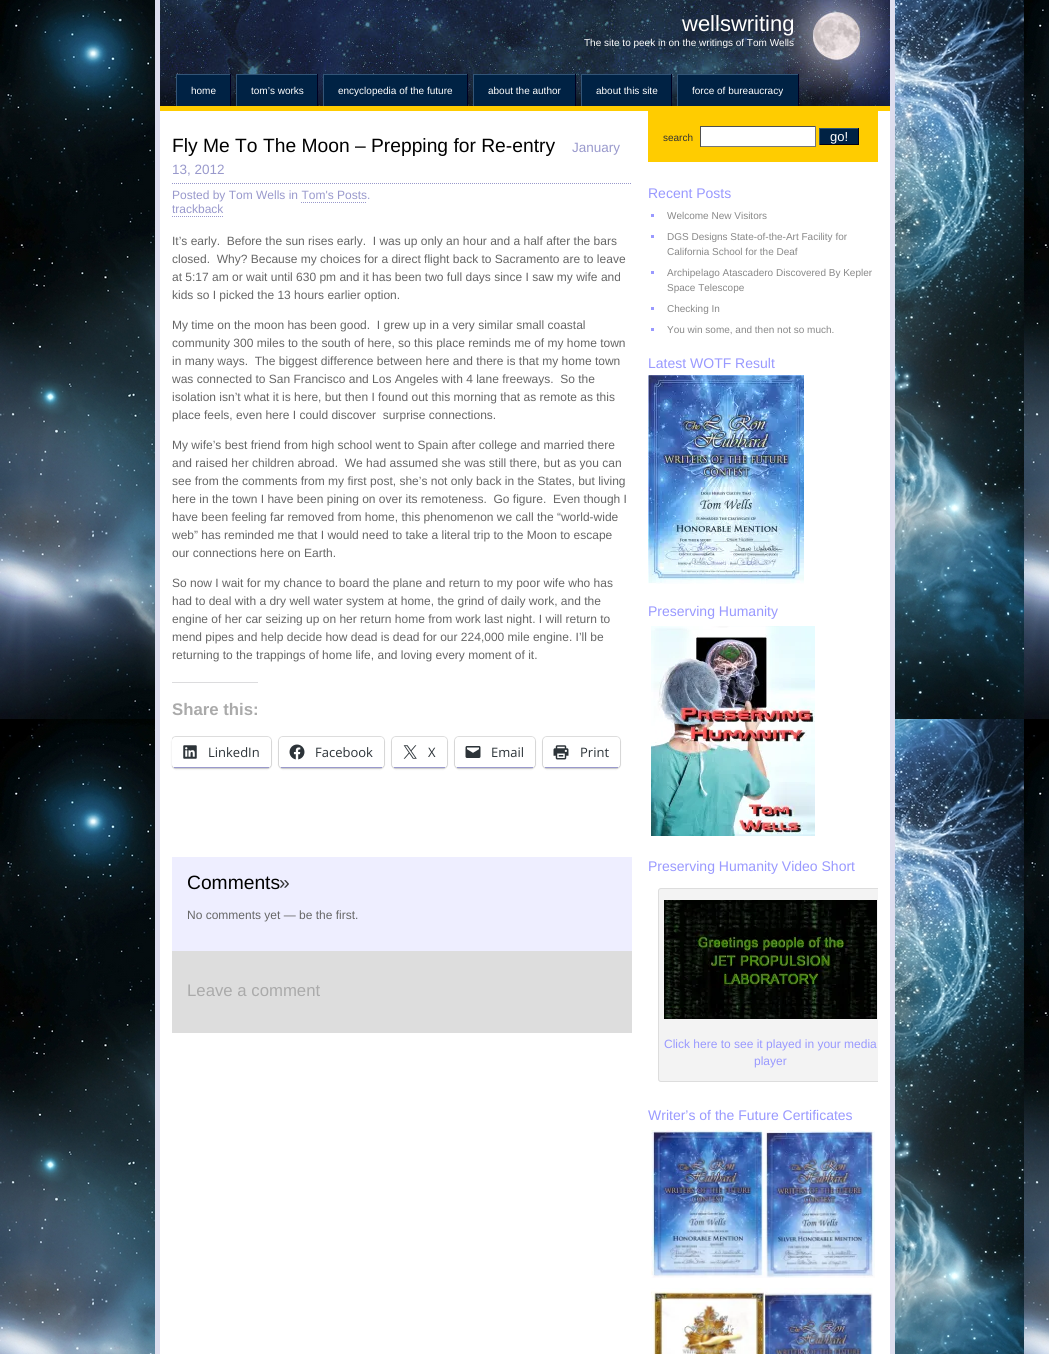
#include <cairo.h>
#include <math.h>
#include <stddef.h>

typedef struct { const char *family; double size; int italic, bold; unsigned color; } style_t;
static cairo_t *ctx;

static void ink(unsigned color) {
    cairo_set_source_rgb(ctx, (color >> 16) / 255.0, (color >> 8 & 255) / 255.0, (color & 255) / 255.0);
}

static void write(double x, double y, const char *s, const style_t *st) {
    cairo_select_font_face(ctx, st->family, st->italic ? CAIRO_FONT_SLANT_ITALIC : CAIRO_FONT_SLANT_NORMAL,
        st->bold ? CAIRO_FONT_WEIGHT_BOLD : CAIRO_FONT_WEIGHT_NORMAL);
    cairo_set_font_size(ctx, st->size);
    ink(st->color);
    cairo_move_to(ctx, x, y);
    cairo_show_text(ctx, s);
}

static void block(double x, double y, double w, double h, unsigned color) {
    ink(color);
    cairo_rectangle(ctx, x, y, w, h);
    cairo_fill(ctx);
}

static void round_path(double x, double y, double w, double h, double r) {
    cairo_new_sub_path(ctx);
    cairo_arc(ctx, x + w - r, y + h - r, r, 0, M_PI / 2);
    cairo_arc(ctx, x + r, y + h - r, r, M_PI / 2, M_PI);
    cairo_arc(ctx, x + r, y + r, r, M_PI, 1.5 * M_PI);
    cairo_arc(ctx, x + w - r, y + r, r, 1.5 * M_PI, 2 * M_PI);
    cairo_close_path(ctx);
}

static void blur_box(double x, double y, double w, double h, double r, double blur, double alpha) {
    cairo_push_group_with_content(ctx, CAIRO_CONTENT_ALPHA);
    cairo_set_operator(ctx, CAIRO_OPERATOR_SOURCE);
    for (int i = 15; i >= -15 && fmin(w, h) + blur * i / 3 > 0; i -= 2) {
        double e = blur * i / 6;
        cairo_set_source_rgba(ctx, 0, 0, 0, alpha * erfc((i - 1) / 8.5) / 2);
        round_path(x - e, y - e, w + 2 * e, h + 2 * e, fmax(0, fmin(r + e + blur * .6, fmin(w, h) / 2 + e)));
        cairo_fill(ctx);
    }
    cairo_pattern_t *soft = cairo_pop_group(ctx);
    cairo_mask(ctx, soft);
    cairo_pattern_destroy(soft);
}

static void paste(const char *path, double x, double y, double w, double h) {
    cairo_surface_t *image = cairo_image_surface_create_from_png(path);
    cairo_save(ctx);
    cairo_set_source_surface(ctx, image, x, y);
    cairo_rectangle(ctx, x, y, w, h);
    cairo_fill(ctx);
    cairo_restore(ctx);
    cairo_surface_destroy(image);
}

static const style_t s1 = {"Liberation Sans", 22, 0, 0, 0xffffff};
static const style_t s2 = {"Liberation Sans", 10, 0, 0, 0xffffff};
static const style_t s3 = {"Liberation Sans", 19.25, 0, 0, 0x000000};
static const style_t s4 = {"Liberation Sans", 13.5, 0, 0, 0x9999cc};
static const style_t s5 = {"Liberation Sans", 12, 0, 0, 0x9999cc};
static const style_t s6 = {"Liberation Sans", 12, 0, 0, 0x666666};
static const style_t s7 = {"Liberation Sans", 16.75, 0, 1, 0xaaaaaa};
static const style_t s8 = {"Open Sans", 13, 0, 0, 0x2c3338};
static const style_t s9 = {"Liberation Sans", 19.25, 0, 0, 0x333333};
static const style_t s10 = {"Liberation Sans", 16.75, 0, 0, 0xaaaaaa};
static const style_t s11 = {"Liberation Sans", 10, 0, 0, 0x333333};
static const style_t s12 = {"Liberation Sans", 13, 0, 0, 0xffffff};
static const style_t s13 = {"Liberation Sans", 14, 0, 0, 0x9999ff};
static const style_t s14 = {"Liberation Sans", 10, 0, 0, 0x888888};
static const style_t s15 = {"Liberation Sans", 12, 0, 0, 0x9999ff};

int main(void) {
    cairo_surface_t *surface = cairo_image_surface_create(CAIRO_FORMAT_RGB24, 1049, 1354);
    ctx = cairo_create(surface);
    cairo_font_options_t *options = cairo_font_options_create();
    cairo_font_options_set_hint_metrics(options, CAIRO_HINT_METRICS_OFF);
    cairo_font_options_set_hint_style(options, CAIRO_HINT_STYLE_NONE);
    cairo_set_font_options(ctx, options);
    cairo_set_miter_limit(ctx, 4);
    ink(0xffffff);
    cairo_paint(ctx);
    paste("pic1.png", 0, 0, 1049, 1354);
    block(160, 111, 730, 1243, 0xffffff);
    cairo_rectangle(ctx, 157.5, -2.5, 735, 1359);
    ink(0xddddee);
    cairo_set_line_width(ctx, 5);
    cairo_stroke(ctx);
    paste("pic2.png", 160, 0, 730, 106);
    block(160, 106, 730, 5, 0xffcc00);
    write(682, 31, "wellswriting", &s1);
    write(584, 46, "The site to peek in on the writings of Tom Wells", &s2);
    block(177, 75, 53, 31, 0x002244);
    block(176, 74, 55, 1, 0x335577);
    block(230, 74, 1, 32, 0x000022);
    block(176, 74, 1, 32, 0x335577);
    write(191, 94, "home", &s2);
    block(237, 75, 80, 31, 0x002244);
    block(236, 74, 82, 1, 0x335577);
    block(317, 74, 1, 32, 0x000022);
    block(236, 74, 1, 32, 0x335577);
    write(251, 94, "tom’s works", &s2);
    block(324, 75, 143, 31, 0x002244);
    block(323, 74, 145, 1, 0x335577);
    block(467, 74, 1, 32, 0x000022);
    block(323, 74, 1, 32, 0x335577);
    write(338, 94, "encyclopedia of the future", &s2);
    block(474, 75, 101, 31, 0x002244);
    block(473, 74, 103, 1, 0x335577);
    block(575, 74, 1, 32, 0x000022);
    block(473, 74, 1, 32, 0x335577);
    write(488, 94, "about the author", &s2);
    block(582, 75, 89, 31, 0x002244);
    block(581, 74, 91, 1, 0x335577);
    block(671, 74, 1, 32, 0x000022);
    block(581, 74, 1, 32, 0x335577);
    write(596, 94, "about this site", &s2);
    block(678, 75, 120, 31, 0x002244);
    block(677, 74, 122, 1, 0x335577);
    block(798, 74, 1, 32, 0x000022);
    block(677, 74, 1, 32, 0x335577);
    write(692, 94, "force of bureaucracy", &s2);
    write(172, 152, "Fly Me To The Moon – Prepping for Re-entry", &s3);
    write(572, 152, "January", &s4);
    write(172, 174, "13, 2012", &s4);
    cairo_new_path(ctx);
    cairo_move_to(ctx, 172, 183.5);
    cairo_line_to(ctx, 632, 183.5);
    cairo_set_line_width(ctx, 1);
    cairo_set_dash(ctx, (double[]){1, 1}, 2, 0);
    cairo_stroke(ctx);
    write(172, 199, "Posted by Tom Wells in Tom's Posts.", &s5);
    cairo_new_path(ctx);
    cairo_move_to(ctx, 301, 202.5);
    cairo_line_to(ctx, 367, 202.5);
    cairo_stroke(ctx);
    write(172, 213, "trackback", &s5);
    cairo_new_path(ctx);
    cairo_move_to(ctx, 172, 216.5);
    cairo_line_to(ctx, 223, 216.5);
    cairo_stroke(ctx);
    write(172, 245, "It’s early.  Before the sun rises early.  I was up only an hour and a half after the bars", &s6);
    write(172, 263, "closed.  Why? Because my choices for a direct flight back to Sacramento are to leave", &s6);
    write(172, 281, "at 5:17 am or wait until 630 pm and it has been two full days since I saw my wife and", &s6);
    write(172, 299, "kids so I picked the 13 hours earlier option.", &s6);
    write(172, 329, "My time on the moon has been good.  I grew up in a very similar small coastal", &s6);
    write(172, 347, "community 300 miles to the south of here, so this place reminds me of my home town", &s6);
    write(172, 365, "in many ways.  The biggest difference between here and there is that my home town", &s6);
    write(172, 383, "was connected to San Francisco and Los Angeles with 4 lane freeways.  So the", &s6);
    write(172, 401, "isolation isn’t what it is here, but then I found out this morning that as remote as this", &s6);
    write(172, 419, "place feels, even here I could discover  surprise connections.", &s6);
    write(172, 449, "My wife’s best friend from high school went to Spain after college and married there", &s6);
    write(172, 467, "and raised her children abroad.  We had assumed she was still there, but as you can", &s6);
    write(172, 485, "see from the comments from my first post, she’s not only back in the States, but living", &s6);
    write(172, 503, "here in the town I have been pining on over its remoteness.  Go figure.  Even though I", &s6);
    write(172, 521, "have been feeling far removed from home, this phenomenon we call the “world-wide", &s6);
    write(172, 539, "web” has reminded me that I would need to take a literal trip to the Moon to escape", &s6);
    write(172, 557, "our connections here on Earth.", &s6);
    write(172, 587, "So now I wait for my chance to board the plane and return to my poor wife who has", &s6);
    write(172, 605, "had to deal with a dry well water system at home, the grind of daily work, and the", &s6);
    write(172, 623, "engine of her car seizing up on her return home from work last night. I will return to", &s6);
    write(172, 641, "mend pipes and help decide how dead is dead for our 224,000 mile engine. I’ll be", &s6);
    write(172, 659, "returning to the trappings of home life, and loving every moment of it.", &s6);
    block(172, 682, 86, 1, 0xdcdcde);
    write(172, 715, "Share this:", &s7);
    cairo_save(ctx);
    cairo_rectangle(ctx, 172, 111, 460, 922);
    cairo_clip(ctx);
    round_path(171.5, 736.5, 100, 32, 4.5);
    ink(0xe0e0e0);
    cairo_set_dash(ctx, NULL, 0, 0);
    cairo_stroke(ctx);
    cairo_restore(ctx);
    ink(0x000000);
    blur_box(172, 738, 99, 31, 4, 1, 0.12);
    ink(0xffffff);
    round_path(172, 737, 99, 31, 4);
    cairo_fill(ctx);
    block(174, 767, 95, 1, 0x9999cc);
    paste("pic3.png", 183, 745, 14, 14);
    write(208, 757, "LinkedIn", &s8);
    round_path(278.5, 736.5, 106, 32, 4.5);
    ink(0xe0e0e0);
    cairo_set_dash(ctx, NULL, 0, 0);
    cairo_stroke(ctx);
    ink(0x000000);
    blur_box(279, 738, 105, 31, 4, 1, 0.12);
    ink(0xffffff);
    round_path(279, 737, 105, 31, 4);
    cairo_fill(ctx);
    block(281, 767, 101, 1, 0x9999cc);
    paste("pic4.png", 289, 744, 16, 16);
    write(315, 757, "Facebook", &s8);
    round_path(391.5, 736.5, 56, 32, 4.5);
    ink(0xe0e0e0);
    cairo_stroke(ctx);
    ink(0x000000);
    blur_box(392, 738, 55, 31, 4, 1, 0.12);
    ink(0xffffff);
    round_path(392, 737, 55, 31, 4);
    cairo_fill(ctx);
    block(394, 767, 51, 1, 0x9999cc);
    paste("pic5.png", 403, 745, 14, 14);
    write(428, 757, "X", &s8);
    round_path(454.5, 736.5, 81, 32, 4.5);
    ink(0xe0e0e0);
    cairo_stroke(ctx);
    ink(0x000000);
    blur_box(455, 738, 80, 31, 4, 1, 0.12);
    ink(0xffffff);
    round_path(455, 737, 80, 31, 4);
    cairo_fill(ctx);
    block(457, 767, 76, 1, 0x9999cc);
    paste("pic6.png", 465, 746, 16, 12);
    write(491, 757, "Email", &s8);
    round_path(542.5, 736.5, 78, 32, 4.5);
    ink(0xe0e0e0);
    cairo_stroke(ctx);
    ink(0x000000);
    blur_box(543, 738, 77, 31, 4, 1, 0.12);
    ink(0xffffff);
    round_path(543, 737, 77, 31, 4);
    cairo_fill(ctx);
    block(545, 767, 73, 1, 0x9999cc);
    paste("pic7.png", 553, 745, 16, 15);
    write(580, 757, "Print", &s8);
    block(172, 857, 460, 94, 0xeeeeff);
    write(187, 889, "Comments", &s3);
    write(279, 889, "»", &s9);
    write(187, 919, "No comments yet — be the first.", &s6);
    block(172, 951, 460, 82, 0xdddddd);
    write(187, 996, "Leave a comment", &s10);
    block(648, 111, 230, 51, 0xffcc00);
    write(663, 141, "search", &s11);
    block(701, 127, 114, 19, 0xffffff);
    block(700, 126, 116, 1, 0x4f4f4f);
    block(815, 126, 1, 21, 0x767676);
    block(700, 146, 116, 1, 0x767676);
    block(700, 126, 1, 21, 0x4f4f4f);
    block(820, 129, 38, 15, 0x002244);
    block(819, 128, 40, 1, 0x335577);
    block(858, 128, 1, 17, 0x000017);
    block(819, 144, 40, 1, 0x000017);
    block(819, 128, 1, 17, 0x335577);
    write(830, 141, "go!", &s12);
    write(648, 198, "Recent Posts", &s13);
    block(651, 214, 3, 3, 0x9999ff);
    write(667, 219, "Welcome New Visitors", &s14);
    block(651, 235, 3, 3, 0x9999ff);
    write(667, 240, "DGS Designs State-of-the-Art Facility for", &s14);
    write(667, 255, "California School for the Deaf", &s14);
    block(651, 271, 3, 3, 0x9999ff);
    write(667, 276, "Archipelago Atascadero Discovered By Kepler", &s14);
    write(667, 291, "Space Telescope", &s14);
    block(651, 307, 3, 3, 0x9999ff);
    write(667, 312, "Checking In", &s14);
    block(651, 328, 3, 3, 0x9999ff);
    write(667, 333, "You win some, and then not so much.", &s14);
    write(648, 368, "Latest WOTF Result", &s13);
    paste("pic8.png", 648, 375, 156, 209);
    write(648, 616, "Preserving Humanity", &s13);
    paste("pic9.png", 651, 626, 164, 210);
    write(648, 871, "Preserving Humanity Video Short", &s13);
    ink(0xf3f3f3);
    cairo_new_path(ctx);
    cairo_move_to(ctx, 661, 888);
    cairo_line_to(ctx, 878, 888);
    cairo_line_to(ctx, 878, 1082);
    cairo_line_to(ctx, 661, 1082);
    cairo_curve_to(ctx, 659.5, 1082, 658, 1080.5, 658, 1079);
    cairo_line_to(ctx, 658, 891);
    cairo_curve_to(ctx, 658, 889.5, 659.5, 888, 661, 888);
    cairo_close_path(ctx);
    cairo_fill(ctx);
    cairo_save(ctx);
    cairo_rectangle(ctx, 648, 843, 230, 249);
    cairo_clip(ctx);
    round_path(658.5, 888.5, 224, 193, 2.5);
    ink(0xdddddd);
    cairo_stroke(ctx);
    cairo_restore(ctx);
    paste("pic10.png", 664, 900, 213, 119);
    write(664, 1048, "Click here to see it played in your media", &s15);
    write(754, 1065, "player", &s15);
    write(648, 1120, "Writer’s of the Future Certificates", &s13);
    paste("pic11.png", 651, 1130, 224, 148);
    paste("pic12.png", 651, 1288, 222, 66);
    cairo_surface_write_to_png(surface, "screenshot.png");
    cairo_font_options_destroy(options);
    cairo_destroy(ctx);
    cairo_surface_destroy(surface);
    return 0;
}
